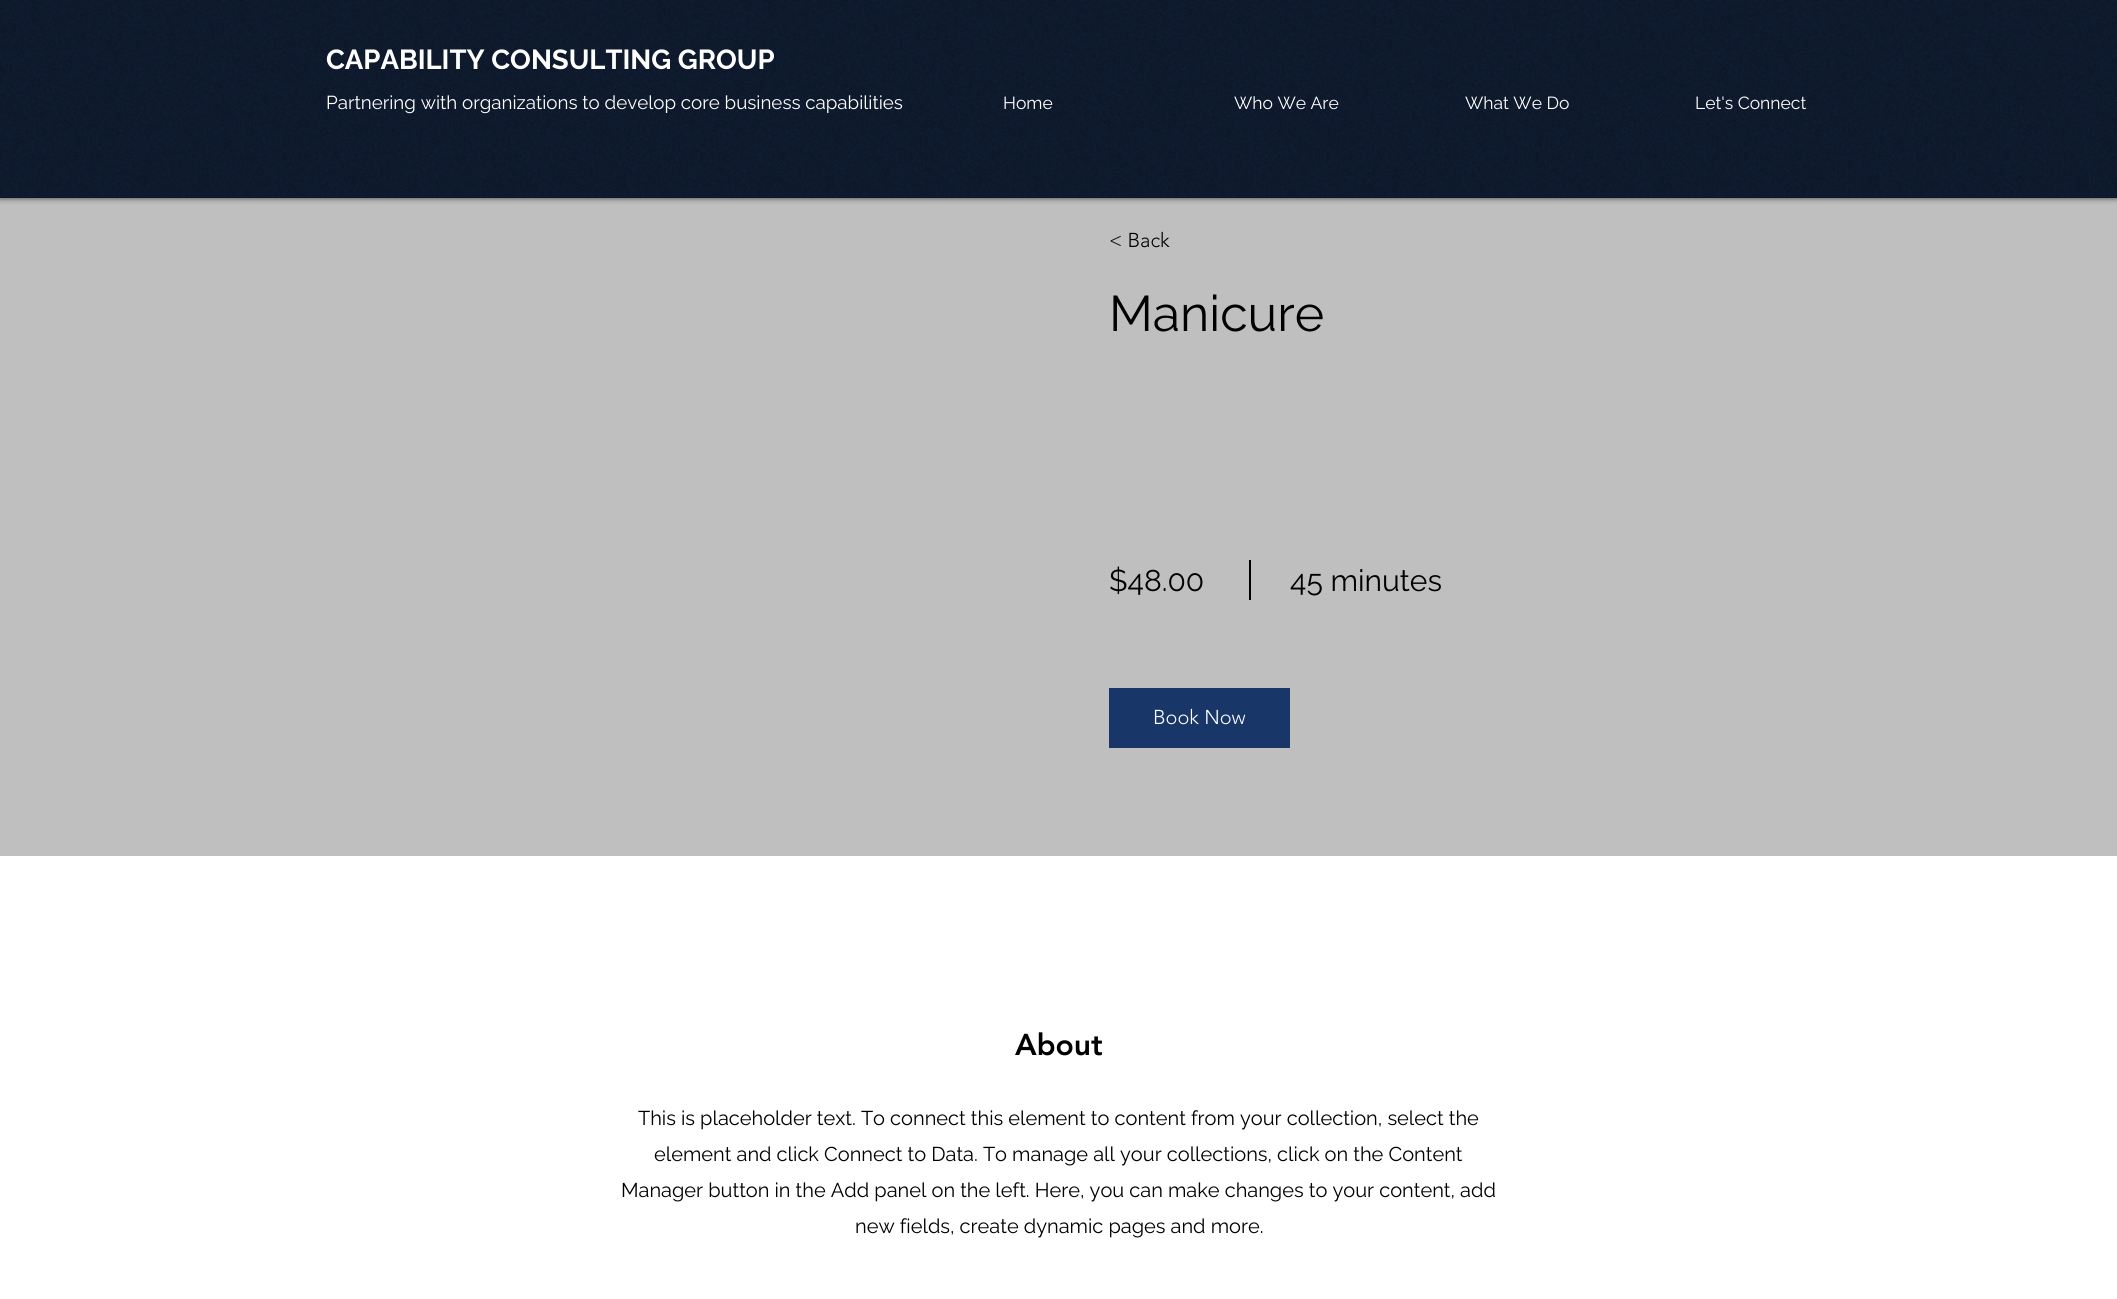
#include <cairo.h>
#include <math.h>
#include <stddef.h>

typedef struct { const char *family; double size; int italic, bold; unsigned color; } style_t;
static cairo_t *ctx;

static void ink(unsigned color) {
    cairo_set_source_rgb(ctx, (color >> 16) / 255.0, (color >> 8 & 255) / 255.0, (color & 255) / 255.0);
}

static void write(double x, double y, const char *s, const style_t *st) {
    cairo_select_font_face(ctx, st->family, st->italic ? CAIRO_FONT_SLANT_ITALIC : CAIRO_FONT_SLANT_NORMAL,
        st->bold ? CAIRO_FONT_WEIGHT_BOLD : CAIRO_FONT_WEIGHT_NORMAL);
    cairo_set_font_size(ctx, st->size);
    ink(st->color);
    cairo_move_to(ctx, x, y);
    cairo_show_text(ctx, s);
}

static void block(double x, double y, double w, double h, unsigned color) {
    ink(color);
    cairo_rectangle(ctx, x, y, w, h);
    cairo_fill(ctx);
}

static void round_path(double x, double y, double w, double h, double r) {
    cairo_new_sub_path(ctx);
    cairo_arc(ctx, x + w - r, y + h - r, r, 0, M_PI / 2);
    cairo_arc(ctx, x + r, y + h - r, r, M_PI / 2, M_PI);
    cairo_arc(ctx, x + r, y + r, r, M_PI, 1.5 * M_PI);
    cairo_arc(ctx, x + w - r, y + r, r, 1.5 * M_PI, 2 * M_PI);
    cairo_close_path(ctx);
}

static void blur_box(double x, double y, double w, double h, double r, double blur, double alpha) {
    cairo_push_group_with_content(ctx, CAIRO_CONTENT_ALPHA);
    cairo_set_operator(ctx, CAIRO_OPERATOR_SOURCE);
    for (int i = 15; i >= -15 && fmin(w, h) + blur * i / 3 > 0; i -= 2) {
        double e = blur * i / 6;
        cairo_set_source_rgba(ctx, 0, 0, 0, alpha * erfc((i - 1) / 8.5) / 2);
        round_path(x - e, y - e, w + 2 * e, h + 2 * e, fmax(0, fmin(r + e + blur * .6, fmin(w, h) / 2 + e)));
        cairo_fill(ctx);
    }
    cairo_pattern_t *soft = cairo_pop_group(ctx);
    cairo_mask(ctx, soft);
    cairo_pattern_destroy(soft);
}

static void paste(const char *path, double x, double y, double w, double h) {
    cairo_surface_t *image = cairo_image_surface_create_from_png(path);
    cairo_save(ctx);
    cairo_set_source_surface(ctx, image, x, y);
    cairo_rectangle(ctx, x, y, w, h);
    cairo_fill(ctx);
    cairo_restore(ctx);
    cairo_surface_destroy(image);
}

static const style_t s1 = {"Raleway", 27.5, 0, 1, 0xffffff};
static const style_t s2 = {"Raleway", 18.75, 0, 0, 0xffffff};
static const style_t s3 = {"Raleway", 17.5, 0, 0, 0xffffff};
static const style_t s4 = {"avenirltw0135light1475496 Light", 20, 0, 0, 0x000000};
static const style_t s5 = {"Raleway", 50, 0, 0, 0x000000};
static const style_t s6 = {"Raleway", 30, 0, 0, 0x000000};
static const style_t s7 = {"avenirltw0135light1475496 Light", 20, 0, 0, 0xffffff};
static const style_t s8 = {"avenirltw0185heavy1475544 Black", 30, 0, 0, 0x000000};
static const style_t s9 = {"Raleway", 20, 0, 0, 0x000000};

int main(void) {
    cairo_surface_t *surface = cairo_image_surface_create(CAIRO_FORMAT_RGB24, 2117, 1299);
    ctx = cairo_create(surface);
    cairo_font_options_t *options = cairo_font_options_create();
    cairo_font_options_set_hint_metrics(options, CAIRO_HINT_METRICS_OFF);
    cairo_font_options_set_hint_style(options, CAIRO_HINT_STYLE_NONE);
    cairo_set_font_options(ctx, options);
    cairo_set_miter_limit(ctx, 4);
    ink(0xffffff);
    cairo_paint(ctx);
    block(0, 198, 2117, 658, 0xbfbfbf);
    ink(0x000000);
    blur_box(0, 0, 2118, 198, 0, 3, 0.7);
    block(0, 0, 2117, 198, 0x0c182c);
    paste("pic1.png", 0, 0, 2117, 197);
    write(326, 69, "CAPABILITY CONSULTING GROUP", &s1);
    write(326, 109, "Partnering with organizations to develop core business capabilities", &s2);
    write(1003, 109, "Home", &s3);
    write(1234, 109, "Who We Are", &s3);
    write(1465, 109, "What We Do", &s3);
    write(1695, 109, "Let's Connect", &s3);
    write(1109, 247, "< Back", &s4);
    write(1109, 331, "Manicure", &s5);
    write(1109, 591, "$48.00", &s6);
    block(1249, 560, 2, 40, 0x000000);
    write(1290, 591, "45 minutes", &s6);
    block(1109, 688, 181, 60, 0x193669);
    write(1153, 724, "Book Now", &s7);
    write(1015, 1055, "About", &s8);
    write(638, 1125, "This is placeholder text. To connect this element to content from your collection, select the", &s9);
    write(654, 1161, "element and click Connect to Data. To manage all your collections, click on the Content", &s9);
    write(621, 1197, "Manager button in the Add panel on the left. Here, you can make changes to your content, add", &s9);
    write(855, 1233, "new fields, create dynamic pages and more.", &s9);
    cairo_surface_write_to_png(surface, "screenshot.png");
    cairo_font_options_destroy(options);
    cairo_destroy(ctx);
    cairo_surface_destroy(surface);
    return 0;
}
